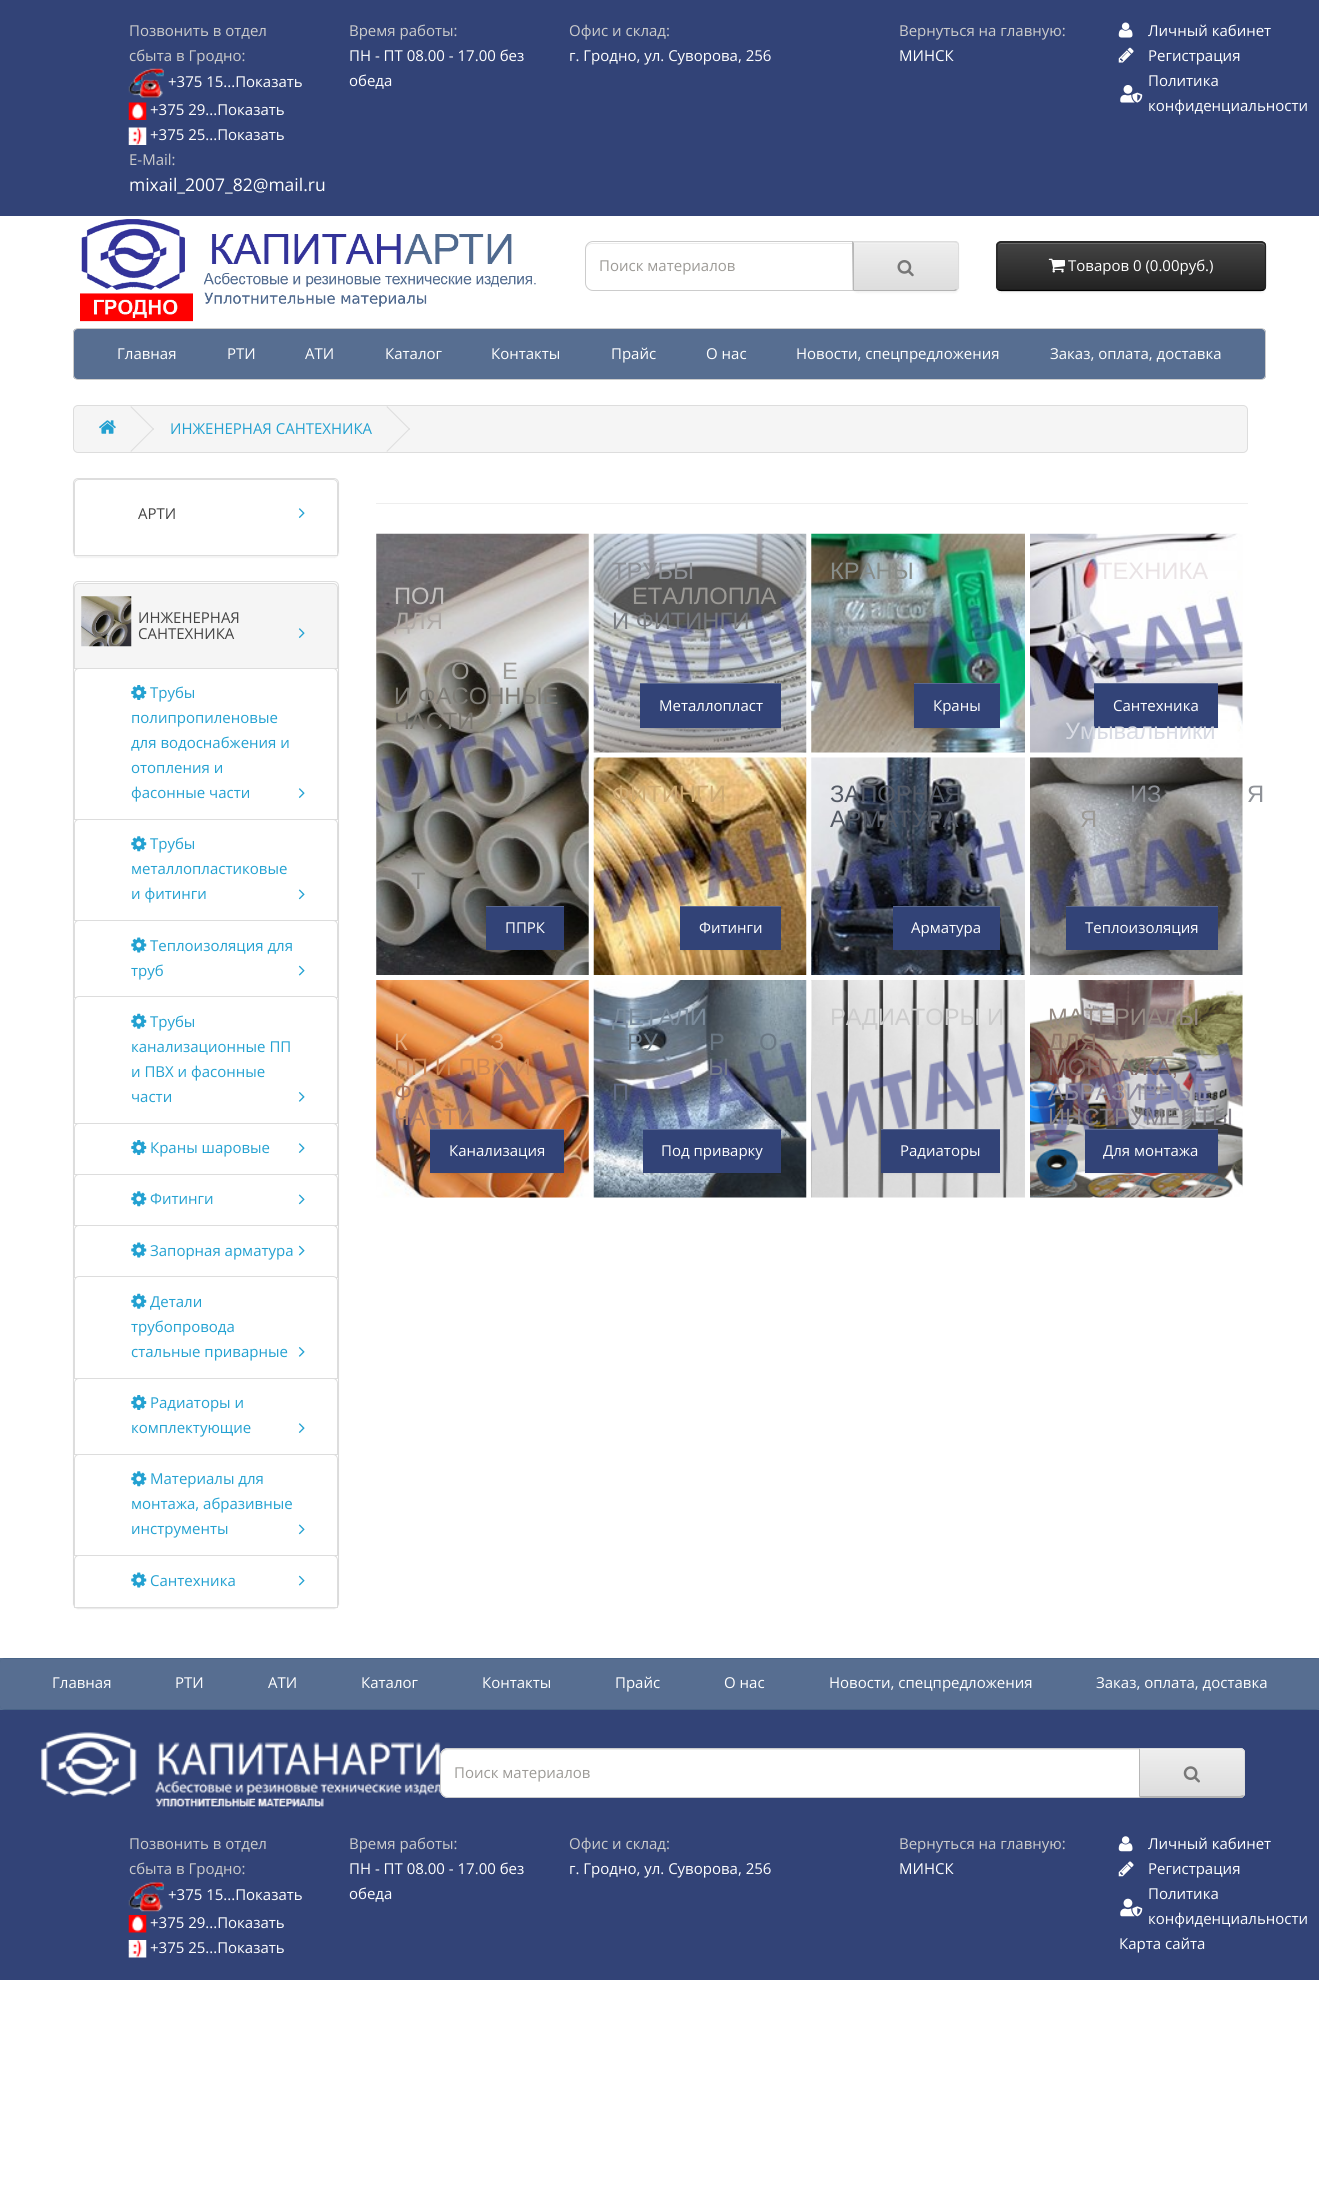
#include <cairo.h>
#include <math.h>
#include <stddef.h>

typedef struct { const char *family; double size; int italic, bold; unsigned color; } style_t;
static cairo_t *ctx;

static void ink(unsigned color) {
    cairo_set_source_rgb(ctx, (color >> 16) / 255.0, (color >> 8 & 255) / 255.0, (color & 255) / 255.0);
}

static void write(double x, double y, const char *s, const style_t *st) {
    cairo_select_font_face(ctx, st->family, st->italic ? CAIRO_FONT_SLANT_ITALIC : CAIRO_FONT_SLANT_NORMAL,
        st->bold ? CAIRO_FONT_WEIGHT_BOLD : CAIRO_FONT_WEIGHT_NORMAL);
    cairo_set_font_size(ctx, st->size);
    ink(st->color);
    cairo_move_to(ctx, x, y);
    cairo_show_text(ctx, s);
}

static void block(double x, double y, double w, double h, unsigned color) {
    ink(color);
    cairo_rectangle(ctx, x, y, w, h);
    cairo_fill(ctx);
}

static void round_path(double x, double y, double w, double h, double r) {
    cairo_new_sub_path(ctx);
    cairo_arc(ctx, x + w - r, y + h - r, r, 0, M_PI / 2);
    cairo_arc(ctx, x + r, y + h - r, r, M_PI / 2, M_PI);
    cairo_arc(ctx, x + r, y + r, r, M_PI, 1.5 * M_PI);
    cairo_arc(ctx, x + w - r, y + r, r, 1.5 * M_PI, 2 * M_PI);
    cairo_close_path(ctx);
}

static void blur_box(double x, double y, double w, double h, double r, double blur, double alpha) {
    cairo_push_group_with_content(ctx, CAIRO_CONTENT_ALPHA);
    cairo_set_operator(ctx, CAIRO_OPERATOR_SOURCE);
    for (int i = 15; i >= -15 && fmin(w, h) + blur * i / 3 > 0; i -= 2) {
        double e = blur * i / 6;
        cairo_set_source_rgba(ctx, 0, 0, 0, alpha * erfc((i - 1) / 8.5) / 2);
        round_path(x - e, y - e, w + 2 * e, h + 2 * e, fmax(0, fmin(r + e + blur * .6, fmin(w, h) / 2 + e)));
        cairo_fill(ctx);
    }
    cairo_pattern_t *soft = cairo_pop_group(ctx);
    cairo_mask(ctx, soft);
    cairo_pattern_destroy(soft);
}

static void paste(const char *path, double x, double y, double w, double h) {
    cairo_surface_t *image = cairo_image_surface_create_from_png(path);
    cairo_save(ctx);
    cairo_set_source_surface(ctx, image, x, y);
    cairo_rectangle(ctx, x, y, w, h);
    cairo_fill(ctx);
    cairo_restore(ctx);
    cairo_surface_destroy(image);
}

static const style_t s1 = {"Open Sans", 15, 0, 0, 0xcccccc};
static const style_t s2 = {"Open Sans", 15, 0, 0, 0xffffff};
static const style_t s3 = {"Open Sans", 17.5, 0, 0, 0xffffff};
static const style_t s4 = {"Open Sans", 15, 0, 0, 0x9c9a96};
static const style_t s5 = {"Open Sans", 15, 0, 0, 0x23a1d1};
static const style_t s6 = {"Open Sans", 15, 0, 0, 0x444444};
static const style_t s7 = {"Liberation Sans", 23.75, 0, 0, 0xc4c1c0};
static const style_t s8 = {"Liberation Sans", 23.75, 0, 0, 0xaea9a6};
static const style_t s9 = {"Liberation Sans", 23.75, 0, 0, 0x9c9a96};
static const style_t s10 = {"Liberation Sans", 23.75, 0, 0, 0x7e7c76};
static const style_t s11 = {"Liberation Sans", 23.75, 0, 0, 0x7a7770};
static const style_t s12 = {"Liberation Sans", 23.75, 0, 0, 0x888783};
static const style_t s13 = {"Liberation Sans", 23.75, 0, 0, 0x8e9197};
static const style_t s14 = {"Liberation Sans", 23.75, 0, 0, 0x797c81};
static const style_t s15 = {"Liberation Sans", 23.75, 0, 0, 0x888d89};
static const style_t s16 = {"Liberation Sans", 23.75, 0, 0, 0xe9e3e5};
static const style_t s17 = {"Liberation Sans", 23.75, 0, 0, 0xd7dae3};
static const style_t s18 = {"Liberation Sans", 23.75, 0, 0, 0xceaa72};
static const style_t s19 = {"Liberation Sans", 23.75, 0, 0, 0x545a65};
static const style_t s20 = {"Liberation Sans", 23.75, 0, 0, 0xe7ac7c};
static const style_t s21 = {"Liberation Sans", 23.75, 0, 0, 0xd08956};
static const style_t s22 = {"Liberation Sans", 23.75, 0, 0, 0xaa765f};
static const style_t s23 = {"Liberation Sans", 23.75, 0, 0, 0xb78264};
static const style_t s24 = {"Liberation Sans", 23.75, 0, 0, 0x7c8c9c};
static const style_t s25 = {"Liberation Sans", 23.75, 0, 0, 0x6b7884};
static const style_t s26 = {"Liberation Sans", 23.75, 0, 0, 0x777d8a};
static const style_t s27 = {"Liberation Sans", 23.75, 0, 0, 0x646d88};
static const style_t s28 = {"Liberation Sans", 23.75, 0, 0, 0xcccccc};
static const style_t s29 = {"Liberation Sans", 23.75, 0, 0, 0x958a83};
static const style_t s30 = {"Liberation Sans", 23.75, 0, 0, 0x8d7466};
static const style_t s31 = {"Liberation Sans", 23.75, 0, 0, 0x826b68};
static const style_t s32 = {"Liberation Sans", 23.75, 0, 0, 0x8f8ca0};
static const style_t s33 = {"Liberation Sans", 23.75, 0, 0, 0x86838b};

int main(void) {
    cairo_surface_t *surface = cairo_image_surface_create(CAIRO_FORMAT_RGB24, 1319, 2207);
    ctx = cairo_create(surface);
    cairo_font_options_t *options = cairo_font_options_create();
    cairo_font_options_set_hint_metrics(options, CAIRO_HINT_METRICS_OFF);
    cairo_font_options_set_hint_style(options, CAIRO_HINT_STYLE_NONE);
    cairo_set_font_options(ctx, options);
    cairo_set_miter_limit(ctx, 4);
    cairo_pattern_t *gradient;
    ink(0xffffff);
    cairo_paint(ctx);
    block(0, 0, 1319, 216, 0x324377);
    write(129, 36, "Позвонить в отдел", &s1);
    write(129, 61, "сбыта в Гродно:", &s1);
    paste("pic1.png", 128, 68, 36, 30);
    write(168, 87, "+375 15...Показать", &s2);
    paste("pic2.png", 128, 102, 19, 18);
    write(150, 115, "+375 29...Показать", &s2);
    paste("pic3.png", 128, 127, 19, 18);
    write(150, 140, "+375 25...Показать", &s2);
    write(129, 165, "E-Mail:", &s1);
    write(129, 191, "mixail_2007_82@mail.ru", &s3);
    write(349, 36, "Время работы:", &s1);
    write(349, 61, "ПН - ПТ 08.00 - 17.00 без", &s2);
    write(349, 86, "обеда", &s2);
    write(569, 36, "Oфис и склад:", &s1);
    write(569, 61, "г. Гродно, ул. Суворова, 256", &s2);
    write(899, 36, "Вернуться на главную:", &s1);
    write(899, 61, "МИНСК", &s2);
    paste("pic4.png", 1118, 22, 15, 16);
    write(1148, 36, "Личный кабинет", &s2);
    paste("pic5.png", 1118, 47, 16, 16);
    write(1148, 61, "Регистрация", &s2);
    paste("pic6.png", 1120, 85, 23, 18);
    write(1148, 86, "Политика", &s2);
    write(1148, 111, "конфиденциальности", &s2);
    paste("pic7.png", 80, 219, 456, 103);
    ink(0xececec);
    cairo_new_path(ctx);
    cairo_move_to(ctx, 592, 244);
    cairo_line_to(ctx, 852, 244);
    cairo_line_to(ctx, 852, 290);
    cairo_line_to(ctx, 853, 290);
    cairo_line_to(ctx, 853, 243);
    cairo_line_to(ctx, 592, 243);
    cairo_curve_to(ctx, 589, 243, 586, 246, 586, 249);
    cairo_line_to(ctx, 586, 250);
    cairo_curve_to(ctx, 586, 247, 589, 244, 592, 244);
    cairo_close_path(ctx);
    cairo_fill(ctx);
    cairo_new_path(ctx);
    cairo_move_to(ctx, 593, 241.5);
    cairo_line_to(ctx, 853.5, 241.5);
    cairo_line_to(ctx, 853.5, 290.5);
    cairo_line_to(ctx, 593, 290.5);
    cairo_curve_to(ctx, 589, 290.5, 585.5, 287, 585.5, 283);
    cairo_line_to(ctx, 585.5, 249);
    cairo_curve_to(ctx, 585.5, 245, 589, 241.5, 593, 241.5);
    cairo_close_path(ctx);
    ink(0xcccccc);
    cairo_set_line_width(ctx, 1);
    cairo_stroke(ctx);
    write(599, 271, "Поиск материалов", &s4);
    ink(0x000000);
    blur_box(853, 243, 106, 50, 5, 1, 0.05);
    ink(0xe7e7e7);
    cairo_new_path(ctx);
    cairo_move_to(ctx, 853, 241);
    cairo_line_to(ctx, 954, 241);
    cairo_curve_to(ctx, 957, 241, 959, 243, 959, 246);
    cairo_line_to(ctx, 959, 286);
    cairo_curve_to(ctx, 959, 289, 957, 291, 954, 291);
    cairo_line_to(ctx, 853, 291);
    cairo_close_path(ctx);
    cairo_fill(ctx);
    cairo_save(ctx);
    cairo_new_path(ctx);
    cairo_move_to(ctx, 853, 241);
    cairo_line_to(ctx, 954, 241);
    cairo_curve_to(ctx, 957, 241, 959, 243, 959, 246);
    cairo_line_to(ctx, 959, 286);
    cairo_curve_to(ctx, 959, 289, 957, 291, 954, 291);
    cairo_line_to(ctx, 853, 291);
    cairo_close_path(ctx);
    cairo_clip(ctx);
    gradient = cairo_pattern_create_linear(906, 243, 906, 290);
    cairo_pattern_add_color_stop_rgba(gradient, 0, 0.933, 0.933, 0.933, 1);
    cairo_pattern_add_color_stop_rgba(gradient, 1, 0.867, 0.867, 0.867, 1);
    cairo_set_source(ctx, gradient);
    cairo_pattern_destroy(gradient);
    cairo_rectangle(ctx, 854, 243, 105, 47);
    cairo_fill(ctx);
    cairo_restore(ctx);
    ink(0xf1f1f1);
    cairo_new_path(ctx);
    cairo_move_to(ctx, 854, 244);
    cairo_line_to(ctx, 954, 244);
    cairo_curve_to(ctx, 956, 244, 958, 245, 958, 248);
    cairo_line_to(ctx, 958, 247);
    cairo_curve_to(ctx, 958, 245, 956, 243, 954, 243);
    cairo_line_to(ctx, 854, 243);
    cairo_close_path(ctx);
    cairo_fill(ctx);
    ink(0xdddddd);
    cairo_new_path(ctx);
    cairo_move_to(ctx, 854, 242);
    cairo_line_to(ctx, 854, 243);
    cairo_line_to(ctx, 852, 241);
    cairo_line_to(ctx, 956, 241);
    cairo_line_to(ctx, 958, 242);
    cairo_line_to(ctx, 957, 243);
    cairo_line_to(ctx, 954, 242);
    cairo_close_path(ctx);
    cairo_fill(ctx);
    cairo_new_path(ctx);
    cairo_move_to(ctx, 959, 288);
    cairo_line_to(ctx, 957, 290);
    cairo_line_to(ctx, 956, 289);
    cairo_curve_to(ctx, 957, 288, 958, 287, 958, 286);
    cairo_line_to(ctx, 958, 246);
    cairo_curve_to(ctx, 958, 245, 958, 244, 957, 243);
    cairo_line_to(ctx, 958, 242);
    cairo_line_to(ctx, 959, 244);
    cairo_close_path(ctx);
    cairo_fill(ctx);
    ink(0xb3b3b3);
    cairo_new_path(ctx);
    cairo_move_to(ctx, 957, 290);
    cairo_line_to(ctx, 955, 291);
    cairo_line_to(ctx, 853, 291);
    cairo_line_to(ctx, 854, 290);
    cairo_line_to(ctx, 954, 290);
    cairo_line_to(ctx, 956, 289);
    cairo_close_path(ctx);
    cairo_fill(ctx);
    ink(0xb7b7b7);
    cairo_new_path(ctx);
    cairo_move_to(ctx, 853, 291);
    cairo_line_to(ctx, 852, 241);
    cairo_line_to(ctx, 854, 243);
    cairo_line_to(ctx, 854, 290);
    cairo_close_path(ctx);
    cairo_fill(ctx);
    paste("pic8.png", 897, 260, 17, 17);
    ink(0x000000);
    blur_box(996, 243, 270, 50, 5, 1, 0.05);
    ink(0x363636);
    round_path(996, 241, 270, 50, 5);
    cairo_fill(ctx);
    cairo_save(ctx);
    round_path(996, 241, 270, 50, 5);
    cairo_clip(ctx);
    gradient = cairo_pattern_create_linear(1131, 243, 1131, 290);
    cairo_pattern_add_color_stop_rgba(gradient, 0, 0.267, 0.267, 0.267, 1);
    cairo_pattern_add_color_stop_rgba(gradient, 1, 0.133, 0.133, 0.133, 1);
    cairo_set_source(ctx, gradient);
    cairo_pattern_destroy(gradient);
    cairo_rectangle(ctx, 996, 243, 270, 47);
    cairo_fill(ctx);
    cairo_restore(ctx);
    ink(0x696969);
    cairo_new_path(ctx);
    cairo_move_to(ctx, 1001, 244);
    cairo_line_to(ctx, 1261, 244);
    cairo_curve_to(ctx, 1263, 244, 1265, 245, 1265, 248);
    cairo_curve_to(ctx, 1265, 245, 1264, 243, 1261, 243);
    cairo_line_to(ctx, 1002, 243);
    cairo_curve_to(ctx, 999, 243, 998, 245, 998, 248);
    cairo_curve_to(ctx, 998, 245, 999, 244, 1001, 244);
    cairo_close_path(ctx);
    cairo_fill(ctx);
    cairo_new_path(ctx);
    cairo_move_to(ctx, 1264.5, 289.5);
    cairo_curve_to(ctx, 1263.5, 290, 1262.5, 290.5, 1261, 290.5);
    cairo_line_to(ctx, 1001, 290.5);
    cairo_curve_to(ctx, 1000, 290.5, 999, 290, 998, 289.5);
    ink(0x000000);
    cairo_set_line_width(ctx, 1.2);
    cairo_stroke(ctx);
    cairo_new_path(ctx);
    cairo_move_to(ctx, 998, 289.5);
    cairo_curve_to(ctx, 997.5, 288.5, 997, 287.5, 997, 286);
    cairo_line_to(ctx, 997, 246);
    cairo_curve_to(ctx, 997, 245, 997.5, 244, 998, 243);
    cairo_curve_to(ctx, 999, 242.5, 1000, 242, 1001, 242);
    cairo_line_to(ctx, 1261, 242);
    cairo_curve_to(ctx, 1262.5, 242, 1263.5, 242.5, 1264.5, 243);
    cairo_curve_to(ctx, 1265, 244, 1265.5, 245, 1265.5, 246);
    cairo_line_to(ctx, 1265.5, 286);
    cairo_curve_to(ctx, 1265.5, 287.5, 1265, 288.5, 1264.5, 289.5);
    ink(0x222222);
    cairo_stroke(ctx);
    paste("pic9.png", 1048, 258, 17, 15);
    write(1068, 271, "Товаров 0 (0.00руб.)", &s2);
    cairo_save(ctx);
    round_path(73, 328, 1193, 52, 5);
    cairo_clip(ctx);
    block(73, 329, 1193, 50, 0x576e91);
    cairo_restore(ctx);
    round_path(73.5, 328.5, 1192, 51, 4.5);
    ink(0xcccccc);
    cairo_set_line_width(ctx, 1);
    cairo_stroke(ctx);
    write(117, 359, "Главная", &s2);
    write(227, 359, "РТИ", &s2);
    write(305, 359, "АТИ", &s2);
    write(385, 359, "Каталог", &s2);
    write(491, 359, "Контакты", &s2);
    write(611, 359, "Прайс", &s2);
    write(706, 359, "О нас", &s2);
    write(796, 359, "Новости, спецпредложения", &s2);
    write(1050, 359, "Заказ, оплата, доставка", &s2);
    ink(0xf5f5f5);
    round_path(73.5, 405.5, 1174, 47, 4.5);
    cairo_fill_preserve(ctx);
    ink(0xdddddd);
    cairo_stroke(ctx);
    paste("pic10.png", 99, 420, 17, 14);
    cairo_new_path(ctx);
    cairo_move_to(ctx, 130.5, 407);
    cairo_line_to(ctx, 131, 406);
    cairo_line_to(ctx, 154, 429);
    cairo_line_to(ctx, 153.5, 430);
    cairo_close_path(ctx);
    cairo_fill(ctx);
    cairo_new_path(ctx);
    cairo_move_to(ctx, 130.5, 451);
    cairo_line_to(ctx, 153.5, 428);
    cairo_line_to(ctx, 154, 429);
    cairo_line_to(ctx, 131, 452);
    cairo_close_path(ctx);
    cairo_fill(ctx);
    write(170, 434, "ИНЖЕНЕРНАЯ САНТЕХНИКА", &s5);
    ink(0xdddddd);
    cairo_new_path(ctx);
    cairo_move_to(ctx, 386.5, 407);
    cairo_line_to(ctx, 387, 406);
    cairo_line_to(ctx, 410, 429);
    cairo_line_to(ctx, 409.5, 430);
    cairo_close_path(ctx);
    cairo_fill(ctx);
    cairo_new_path(ctx);
    cairo_move_to(ctx, 386.5, 451);
    cairo_line_to(ctx, 409.5, 428);
    cairo_line_to(ctx, 410, 429);
    cairo_line_to(ctx, 387, 452);
    cairo_close_path(ctx);
    cairo_fill(ctx);
    ink(0x000000);
    blur_box(73, 479, 266, 79, 5, 0.5, 0.05);
    ink(0xffffff);
    round_path(73.5, 478.5, 265, 77, 4.5);
    cairo_fill_preserve(ctx);
    ink(0xdddddd);
    cairo_stroke(ctx);
    ink(0xffffff);
    cairo_new_path(ctx);
    cairo_move_to(ctx, 79, 479.5);
    cairo_line_to(ctx, 333, 479.5);
    cairo_curve_to(ctx, 335.5, 479.5, 337.5, 481.5, 337.5, 484);
    cairo_line_to(ctx, 337.5, 555.5);
    cairo_line_to(ctx, 74.5, 555.5);
    cairo_line_to(ctx, 74.5, 484);
    cairo_curve_to(ctx, 74.5, 481.5, 76.5, 479.5, 79, 479.5);
    cairo_close_path(ctx);
    cairo_fill_preserve(ctx);
    ink(0xdddddd);
    cairo_stroke(ctx);
    write(138, 519, "АРТИ", &s6);
    paste("pic11.png", 298, 508, 7, 10);
    ink(0x000000);
    blur_box(73, 583, 266, 1026, 5, 0.5, 0.05);
    ink(0xffffff);
    round_path(73.5, 581.5, 265, 1026, 4.5);
    cairo_fill_preserve(ctx);
    ink(0xdddddd);
    cairo_stroke(ctx);
    ink(0xf5f5f5);
    cairo_new_path(ctx);
    cairo_move_to(ctx, 79, 583.5);
    cairo_line_to(ctx, 333, 583.5);
    cairo_curve_to(ctx, 335.5, 583.5, 337.5, 585.5, 337.5, 588);
    cairo_line_to(ctx, 337.5, 668.5);
    cairo_line_to(ctx, 74.5, 668.5);
    cairo_line_to(ctx, 74.5, 588);
    cairo_curve_to(ctx, 74.5, 585.5, 76.5, 583.5, 79, 583.5);
    cairo_close_path(ctx);
    cairo_fill_preserve(ctx);
    ink(0xdddddd);
    cairo_stroke(ctx);
    paste("pic12.png", 81, 596, 51, 51);
    write(138, 623, "ИНЖЕНЕРНАЯ", &s6);
    write(138, 639, "САНТЕХНИКА", &s6);
    paste("pic13.png", 298, 628, 7, 10);
    ink(0x000000);
    blur_box(74, 820, 264, 103, 5, 0.5, 0.05);
    ink(0xffffff);
    cairo_new_path(ctx);
    cairo_move_to(ctx, 79, 668.5);
    cairo_line_to(ctx, 333, 668.5);
    cairo_curve_to(ctx, 335.5, 668.5, 337.5, 670.5, 337.5, 673);
    cairo_line_to(ctx, 337.5, 819.5);
    cairo_line_to(ctx, 74.5, 819.5);
    cairo_line_to(ctx, 74.5, 673);
    cairo_curve_to(ctx, 74.5, 670.5, 76.5, 668.5, 79, 668.5);
    cairo_close_path(ctx);
    cairo_fill_preserve(ctx);
    ink(0xdddddd);
    cairo_stroke(ctx);
    paste("pic14.png", 131, 685, 16, 15);
    write(150, 698, "Трубы", &s5);
    write(131, 723, "полипропиленовые", &s5);
    write(131, 748, "для водоснабжения и", &s5);
    write(131, 773, "отопления и", &s5);
    write(131, 798, "фасонные части", &s5);
    paste("pic11.png", 298, 788, 7, 10);
    ink(0xffffff);
    cairo_new_path(ctx);
    cairo_move_to(ctx, 79, 819.5);
    cairo_line_to(ctx, 333, 819.5);
    cairo_curve_to(ctx, 335.5, 819.5, 337.5, 821.5, 337.5, 824);
    cairo_line_to(ctx, 337.5, 920.5);
    cairo_line_to(ctx, 74.5, 920.5);
    cairo_line_to(ctx, 74.5, 824);
    cairo_curve_to(ctx, 74.5, 821.5, 76.5, 819.5, 79, 819.5);
    cairo_close_path(ctx);
    cairo_fill_preserve(ctx);
    ink(0xdddddd);
    cairo_stroke(ctx);
    paste("pic15.png", 131, 836, 16, 16);
    write(150, 849, "Трубы", &s5);
    write(131, 874, "металлопластиковые", &s5);
    write(131, 899, "и фитинги", &s5);
    paste("pic16.png", 298, 889, 7, 11);
    ink(0xffffff);
    cairo_new_path(ctx);
    cairo_move_to(ctx, 79, 920.5);
    cairo_line_to(ctx, 333, 920.5);
    cairo_curve_to(ctx, 335.5, 920.5, 337.5, 922.5, 337.5, 925);
    cairo_line_to(ctx, 337.5, 997.5);
    cairo_line_to(ctx, 74.5, 997.5);
    cairo_line_to(ctx, 74.5, 925);
    cairo_curve_to(ctx, 74.5, 922.5, 76.5, 920.5, 79, 920.5);
    cairo_close_path(ctx);
    cairo_fill_preserve(ctx);
    ink(0xdddddd);
    cairo_stroke(ctx);
    paste("pic17.png", 131, 937, 16, 16);
    write(150, 951, "Теплоизоляция для", &s5);
    write(131, 976, "труб", &s5);
    paste("pic18.png", 298, 965, 7, 11);
    ink(0xffffff);
    cairo_new_path(ctx);
    cairo_move_to(ctx, 79, 996.5);
    cairo_line_to(ctx, 333, 996.5);
    cairo_curve_to(ctx, 335.5, 996.5, 337.5, 998.5, 337.5, 1001);
    cairo_line_to(ctx, 337.5, 1123.5);
    cairo_line_to(ctx, 74.5, 1123.5);
    cairo_line_to(ctx, 74.5, 1001);
    cairo_curve_to(ctx, 74.5, 998.5, 76.5, 996.5, 79, 996.5);
    cairo_close_path(ctx);
    cairo_fill_preserve(ctx);
    ink(0xdddddd);
    cairo_stroke(ctx);
    paste("pic19.png", 131, 1013, 16, 16);
    write(150, 1027, "Трубы", &s5);
    write(131, 1052, "канализационные ПП", &s5);
    write(131, 1077, "и ПВХ и фасонные", &s5);
    write(131, 1102, "части", &s5);
    paste("pic20.png", 298, 1092, 7, 10);
    ink(0x000000);
    blur_box(74, 1175, 264, 53, 5, 0.5, 0.05);
    ink(0xffffff);
    cairo_new_path(ctx);
    cairo_move_to(ctx, 79, 1123.5);
    cairo_line_to(ctx, 333, 1123.5);
    cairo_curve_to(ctx, 335.5, 1123.5, 337.5, 1125.5, 337.5, 1128);
    cairo_line_to(ctx, 337.5, 1174.5);
    cairo_line_to(ctx, 74.5, 1174.5);
    cairo_line_to(ctx, 74.5, 1128);
    cairo_curve_to(ctx, 74.5, 1125.5, 76.5, 1123.5, 79, 1123.5);
    cairo_close_path(ctx);
    cairo_fill_preserve(ctx);
    ink(0xdddddd);
    cairo_stroke(ctx);
    paste("pic14.png", 131, 1140, 16, 15);
    write(150, 1153, "Краны шаровые", &s5);
    paste("pic11.png", 298, 1143, 7, 10);
    ink(0xffffff);
    cairo_new_path(ctx);
    cairo_move_to(ctx, 79, 1174.5);
    cairo_line_to(ctx, 333, 1174.5);
    cairo_curve_to(ctx, 335.5, 1174.5, 337.5, 1176.5, 337.5, 1179);
    cairo_line_to(ctx, 337.5, 1225.5);
    cairo_line_to(ctx, 74.5, 1225.5);
    cairo_line_to(ctx, 74.5, 1179);
    cairo_curve_to(ctx, 74.5, 1176.5, 76.5, 1174.5, 79, 1174.5);
    cairo_close_path(ctx);
    cairo_fill_preserve(ctx);
    ink(0xdddddd);
    cairo_stroke(ctx);
    paste("pic15.png", 131, 1191, 16, 16);
    write(150, 1204, "Фитинги", &s5);
    paste("pic16.png", 298, 1194, 7, 11);
    ink(0xffffff);
    cairo_new_path(ctx);
    cairo_move_to(ctx, 79, 1225.5);
    cairo_line_to(ctx, 333, 1225.5);
    cairo_curve_to(ctx, 335.5, 1225.5, 337.5, 1227.5, 337.5, 1230);
    cairo_line_to(ctx, 337.5, 1277.5);
    cairo_line_to(ctx, 74.5, 1277.5);
    cairo_line_to(ctx, 74.5, 1230);
    cairo_curve_to(ctx, 74.5, 1227.5, 76.5, 1225.5, 79, 1225.5);
    cairo_close_path(ctx);
    cairo_fill_preserve(ctx);
    ink(0xdddddd);
    cairo_stroke(ctx);
    paste("pic17.png", 131, 1242, 16, 16);
    write(150, 1256, "Запорная арматура", &s5);
    paste("pic18.png", 298, 1245, 7, 11);
    ink(0xffffff);
    cairo_new_path(ctx);
    cairo_move_to(ctx, 79, 1276.5);
    cairo_line_to(ctx, 333, 1276.5);
    cairo_curve_to(ctx, 335.5, 1276.5, 337.5, 1278.5, 337.5, 1281);
    cairo_line_to(ctx, 337.5, 1378.5);
    cairo_line_to(ctx, 74.5, 1378.5);
    cairo_line_to(ctx, 74.5, 1281);
    cairo_curve_to(ctx, 74.5, 1278.5, 76.5, 1276.5, 79, 1276.5);
    cairo_close_path(ctx);
    cairo_fill_preserve(ctx);
    ink(0xdddddd);
    cairo_stroke(ctx);
    paste("pic19.png", 131, 1293, 16, 16);
    write(150, 1307, "Детали", &s5);
    write(131, 1332, "трубопровода", &s5);
    write(131, 1357, "стальные приварные", &s5);
    paste("pic20.png", 298, 1347, 7, 10);
    ink(0x000000);
    blur_box(74, 1455, 264, 103, 5, 0.5, 0.05);
    ink(0xffffff);
    cairo_new_path(ctx);
    cairo_move_to(ctx, 79, 1378.5);
    cairo_line_to(ctx, 333, 1378.5);
    cairo_curve_to(ctx, 335.5, 1378.5, 337.5, 1380.5, 337.5, 1383);
    cairo_line_to(ctx, 337.5, 1454.5);
    cairo_line_to(ctx, 74.5, 1454.5);
    cairo_line_to(ctx, 74.5, 1383);
    cairo_curve_to(ctx, 74.5, 1380.5, 76.5, 1378.5, 79, 1378.5);
    cairo_close_path(ctx);
    cairo_fill_preserve(ctx);
    ink(0xdddddd);
    cairo_stroke(ctx);
    paste("pic14.png", 131, 1395, 16, 15);
    write(150, 1408, "Радиаторы и", &s5);
    write(131, 1433, "комплектующие", &s5);
    paste("pic11.png", 298, 1423, 7, 10);
    ink(0x000000);
    blur_box(74, 1556, 264, 53, 5, 0.5, 0.05);
    ink(0xffffff);
    cairo_new_path(ctx);
    cairo_move_to(ctx, 79, 1454.5);
    cairo_line_to(ctx, 333, 1454.5);
    cairo_curve_to(ctx, 335.5, 1454.5, 337.5, 1456.5, 337.5, 1459);
    cairo_line_to(ctx, 337.5, 1555.5);
    cairo_line_to(ctx, 74.5, 1555.5);
    cairo_line_to(ctx, 74.5, 1459);
    cairo_curve_to(ctx, 74.5, 1456.5, 76.5, 1454.5, 79, 1454.5);
    cairo_close_path(ctx);
    cairo_fill_preserve(ctx);
    ink(0xdddddd);
    cairo_stroke(ctx);
    paste("pic15.png", 131, 1471, 16, 16);
    write(150, 1484, "Материалы для", &s5);
    write(131, 1509, "монтажа, абразивные", &s5);
    write(131, 1534, "инструменты", &s5);
    paste("pic16.png", 298, 1524, 7, 11);
    ink(0xffffff);
    cairo_new_path(ctx);
    cairo_move_to(ctx, 79, 1555.5);
    cairo_line_to(ctx, 333, 1555.5);
    cairo_curve_to(ctx, 335.5, 1555.5, 337.5, 1557.5, 337.5, 1560);
    cairo_line_to(ctx, 337.5, 1607.5);
    cairo_line_to(ctx, 74.5, 1607.5);
    cairo_line_to(ctx, 74.5, 1560);
    cairo_curve_to(ctx, 74.5, 1557.5, 76.5, 1555.5, 79, 1555.5);
    cairo_close_path(ctx);
    cairo_fill_preserve(ctx);
    ink(0xdddddd);
    cairo_stroke(ctx);
    paste("pic17.png", 131, 1572, 16, 16);
    write(150, 1586, "Сантехника", &s5);
    paste("pic18.png", 298, 1575, 7, 11);
    block(376, 503, 872, 1, 0xeeeeee);
    paste("pic21.png", 376, 533, 213, 442);
    write(394, 604, "ПОЛ", &s7);
    write(394, 629, "ДЛЯ", &s8);
    write(451, 679, "О", &s9);
    write(502, 679, "Е", &s9);
    write(394, 704, "И ФАСОННЫЕ", &s10);
    write(394, 729, "ЧАСТИ", &s11);
    write(411, 889, "Т", &s12);
    block(486, 907, 78, 43, 0x324377);
    block(486, 906, 78, 1, 0x5b6992);
    write(505, 933, "ППРК", &s2);
    paste("pic22.png", 593, 533, 214, 220);
    write(612, 579, "ТРУБЫ", &s13);
    write(632, 604, "ЕТАЛЛОПЛА", &s9);
    write(612, 629, "И ФИТИНГИ", &s14);
    ink(0x000000);
    blur_box(640, 684, 141, 45, 0, 1, 0.05);
    block(640, 684, 141, 44, 0x324377);
    block(640, 683, 141, 1, 0x5b6992);
    write(659, 711, "Металлопласт", &s2);
    paste("pic23.png", 811, 533, 214, 220);
    write(830, 579, "КРАНЫ", &s15);
    ink(0x000000);
    blur_box(914, 684, 86, 45, 0, 1, 0.05);
    block(914, 684, 86, 44, 0x324377);
    block(914, 683, 86, 1, 0x5b6992);
    write(933, 711, "Краны", &s2);
    paste("pic24.png", 1030, 533, 213, 220);
    write(1098, 579, "ТЕХНИКА", &s16);
    ink(0x000000);
    blur_box(1094, 684, 124, 45, 0, 1, 0.05);
    block(1094, 684, 124, 44, 0x324377);
    cairo_save(ctx);
    cairo_rectangle(ctx, 1049, 614, 175, 125);
    cairo_clip(ctx);
    write(1065, 739, "Умывальники", &s17);
    cairo_restore(ctx);
    block(1094, 683, 124, 1, 0x5b6992);
    write(1113, 711, "Сантехника", &s2);
    paste("pic25.png", 593, 757, 214, 218);
    write(612, 802, "ФИТИНГИ", &s18);
    ink(0x000000);
    blur_box(680, 908, 101, 43, 0, 1, 0.05);
    block(680, 907, 101, 43, 0x324377);
    block(680, 906, 101, 1, 0x5b6992);
    write(699, 933, "Фитинги", &s2);
    paste("pic26.png", 811, 757, 214, 218);
    write(830, 802, "ЗАПОРНАЯ", &s19);
    write(830, 827, "АРМАТУРА", &s19);
    ink(0x000000);
    blur_box(893, 908, 107, 43, 0, 1, 0.05);
    block(893, 907, 107, 43, 0x324377);
    block(893, 906, 107, 1, 0x5b6992);
    write(911, 933, "Арматура", &s2);
    paste("pic27.png", 1030, 757, 213, 218);
    write(1130, 802, "ИЗ", &s13);
    write(1247, 802, "Я", &s13);
    write(1080, 827, "Я", &s9);
    block(1066, 907, 152, 43, 0x324377);
    block(1066, 906, 152, 1, 0x5b6992);
    write(1085, 933, "Теплоизоляция", &s2);
    paste("pic28.png", 376, 980, 213, 218);
    write(394, 1050, "К", &s20);
    write(490, 1050, "З", &s20);
    write(394, 1075, "ПП И ПВХ И", &s21);
    write(394, 1100, "Ф", &s22);
    write(394, 1125, "ЧАСТИ", &s23);
    ink(0x000000);
    blur_box(430, 1130, 134, 44, 0, 1, 0.05);
    block(430, 1130, 134, 43, 0x324377);
    block(430, 1129, 134, 1, 0x5b6992);
    write(449, 1156, "Канализация", &s2);
    paste("pic29.png", 593, 980, 214, 218);
    write(612, 1025, "ДЕТАЛИ", &s24);
    write(627, 1050, "РУ", &s25);
    write(709, 1050, "Р", &s25);
    write(759, 1050, "О", &s25);
    write(708, 1075, "Ы", &s26);
    write(612, 1100, "П", &s27);
    ink(0x000000);
    blur_box(643, 1130, 138, 44, 0, 1, 0.05);
    block(643, 1130, 138, 43, 0x324377);
    block(643, 1129, 138, 1, 0x5b6992);
    write(661, 1156, "Под приварку", &s2);
    paste("pic30.png", 811, 980, 214, 218);
    write(830, 1025, "РАДИАТОРЫ И", &s28);
    ink(0x000000);
    blur_box(881, 1130, 119, 44, 0, 1, 0.05);
    block(881, 1130, 119, 43, 0x324377);
    block(881, 1129, 119, 1, 0x5b6992);
    write(900, 1156, "Радиаторы", &s2);
    paste("pic31.png", 1030, 980, 213, 218);
    write(1048, 1025, "МАТЕРИАЛЫ", &s29);
    write(1048, 1050, "ДЛЯ", &s30);
    write(1048, 1075, "МОНТАЖА,", &s31);
    write(1048, 1100, "АБРАЗИВНЫЕ", &s32);
    write(1048, 1125, "ИНСТРУМЕНТЫ", &s33);
    ink(0x000000);
    blur_box(1085, 1130, 133, 44, 0, 1, 0.05);
    block(1085, 1130, 133, 43, 0x324377);
    block(1085, 1129, 133, 1, 0x5b6992);
    write(1103, 1156, "Для монтажа", &s2);
    block(0, 1658, 1319, 52, 0x576e91);
    ink(0x496487);
    round_path(0, 1658, 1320, 52, 5);
    cairo_fill(ctx);
    cairo_save(ctx);
    round_path(0, 1658, 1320, 52, 5);
    cairo_clip(ctx);
    block(0, 1659, 1319, 50, 0x576e91);
    cairo_restore(ctx);
    write(52, 1688, "Главная", &s2);
    write(175, 1688, "РТИ", &s2);
    write(268, 1688, "АТИ", &s2);
    write(361, 1688, "Каталог", &s2);
    write(482, 1688, "Контакты", &s2);
    write(615, 1688, "Прайс", &s2);
    write(724, 1688, "О нас", &s2);
    write(829, 1688, "Новости, спецпредложения", &s2);
    write(1096, 1688, "Заказ, оплата, доставка", &s2);
    block(0, 1710, 1319, 270, 0x324377);
    paste("pic32.png", 41, 1732, 400, 75);
    ink(0xffffff);
    cairo_new_path(ctx);
    cairo_move_to(ctx, 448, 1748);
    cairo_line_to(ctx, 1140, 1748);
    cairo_line_to(ctx, 1140, 1798);
    cairo_line_to(ctx, 448, 1798);
    cairo_curve_to(ctx, 443.5, 1798, 440, 1794.5, 440, 1790);
    cairo_line_to(ctx, 440, 1756);
    cairo_curve_to(ctx, 440, 1751.5, 443.5, 1748, 448, 1748);
    cairo_close_path(ctx);
    cairo_fill(ctx);
    ink(0xececec);
    cairo_new_path(ctx);
    cairo_move_to(ctx, 448, 1750);
    cairo_line_to(ctx, 1139, 1750);
    cairo_line_to(ctx, 1139, 1749);
    cairo_line_to(ctx, 447, 1749);
    cairo_curve_to(ctx, 443, 1749, 441, 1752, 441, 1756);
    cairo_curve_to(ctx, 441, 1753, 444, 1750, 448, 1750);
    cairo_close_path(ctx);
    cairo_fill(ctx);
    cairo_new_path(ctx);
    cairo_move_to(ctx, 448, 1748.5);
    cairo_line_to(ctx, 1139.5, 1748.5);
    cairo_line_to(ctx, 1139.5, 1797.5);
    cairo_line_to(ctx, 448, 1797.5);
    cairo_curve_to(ctx, 444, 1797.5, 440.5, 1794, 440.5, 1790);
    cairo_line_to(ctx, 440.5, 1756);
    cairo_curve_to(ctx, 440.5, 1752, 444, 1748.5, 448, 1748.5);
    cairo_close_path(ctx);
    ink(0xcccccc);
    cairo_stroke(ctx);
    write(454, 1778, "Поиск материалов", &s4);
    ink(0xe7e7e7);
    cairo_new_path(ctx);
    cairo_move_to(ctx, 1139, 1748);
    cairo_line_to(ctx, 1240, 1748);
    cairo_curve_to(ctx, 1243, 1748, 1245, 1750, 1245, 1753);
    cairo_line_to(ctx, 1245, 1793);
    cairo_curve_to(ctx, 1245, 1796, 1243, 1798, 1240, 1798);
    cairo_line_to(ctx, 1139, 1798);
    cairo_close_path(ctx);
    cairo_fill(ctx);
    cairo_save(ctx);
    cairo_new_path(ctx);
    cairo_move_to(ctx, 1139, 1748);
    cairo_line_to(ctx, 1240, 1748);
    cairo_curve_to(ctx, 1243, 1748, 1245, 1750, 1245, 1753);
    cairo_line_to(ctx, 1245, 1793);
    cairo_curve_to(ctx, 1245, 1796, 1243, 1798, 1240, 1798);
    cairo_line_to(ctx, 1139, 1798);
    cairo_close_path(ctx);
    cairo_clip(ctx);
    gradient = cairo_pattern_create_linear(1192, 1749, 1192, 1796);
    cairo_pattern_add_color_stop_rgba(gradient, 0, 0.933, 0.933, 0.933, 1);
    cairo_pattern_add_color_stop_rgba(gradient, 1, 0.867, 0.867, 0.867, 1);
    cairo_set_source(ctx, gradient);
    cairo_pattern_destroy(gradient);
    cairo_rectangle(ctx, 1140, 1749, 105, 47);
    cairo_fill(ctx);
    cairo_restore(ctx);
    ink(0xf1f1f1);
    cairo_new_path(ctx);
    cairo_move_to(ctx, 1140, 1750);
    cairo_line_to(ctx, 1240, 1750);
    cairo_curve_to(ctx, 1242, 1750, 1244, 1752, 1244, 1754);
    cairo_line_to(ctx, 1244, 1753);
    cairo_curve_to(ctx, 1244, 1751, 1242, 1749, 1240, 1749);
    cairo_line_to(ctx, 1140, 1749);
    cairo_close_path(ctx);
    cairo_fill(ctx);
    ink(0xdddddd);
    cairo_new_path(ctx);
    cairo_move_to(ctx, 1243, 1749);
    cairo_curve_to(ctx, 1243, 1748, 1241, 1748, 1240, 1748);
    cairo_line_to(ctx, 1139, 1748);
    cairo_line_to(ctx, 1140, 1749);
    cairo_line_to(ctx, 1240, 1749);
    cairo_line_to(ctx, 1243, 1750);
    cairo_close_path(ctx);
    cairo_fill(ctx);
    cairo_new_path(ctx);
    cairo_move_to(ctx, 1245, 1792);
    cairo_line_to(ctx, 1245, 1752);
    cairo_curve_to(ctx, 1245, 1751, 1244, 1750, 1243, 1749);
    cairo_line_to(ctx, 1243, 1750);
    cairo_line_to(ctx, 1244, 1752);
    cairo_line_to(ctx, 1244, 1785);
    cairo_curve_to(ctx, 1244, 1787, 1245, 1793, 1243, 1795);
    cairo_line_to(ctx, 1244, 1796);
    cairo_curve_to(ctx, 1244, 1795, 1245, 1794, 1245, 1792);
    cairo_close_path(ctx);
    cairo_fill(ctx);
    ink(0xb3b3b3);
    cairo_new_path(ctx);
    cairo_move_to(ctx, 1139, 1798);
    cairo_line_to(ctx, 1140, 1796);
    cairo_line_to(ctx, 1240, 1796);
    cairo_line_to(ctx, 1243, 1795);
    cairo_line_to(ctx, 1244, 1796);
    cairo_line_to(ctx, 1242, 1798);
    cairo_close_path(ctx);
    cairo_fill(ctx);
    ink(0xb7b7b7);
    cairo_new_path(ctx);
    cairo_move_to(ctx, 1139, 1748);
    cairo_line_to(ctx, 1139, 1797);
    cairo_line_to(ctx, 1140, 1796);
    cairo_line_to(ctx, 1140, 1749);
    cairo_close_path(ctx);
    cairo_fill(ctx);
    paste("pic33.png", 1183, 1766, 17, 17);
    write(129, 1849, "Позвонить в отдел", &s1);
    write(129, 1874, "сбыта в Гродно:", &s1);
    paste("pic34.png", 128, 1882, 36, 30);
    write(168, 1900, "+375 15...Показать", &s2);
    paste("pic35.png", 128, 1915, 19, 18);
    write(150, 1928, "+375 29...Показать", &s2);
    paste("pic36.png", 128, 1940, 19, 18);
    write(150, 1953, "+375 25...Показать", &s2);
    write(349, 1849, "Время работы:", &s1);
    write(349, 1874, "ПН - ПТ 08.00 - 17.00 без", &s2);
    write(349, 1899, "обеда", &s2);
    write(569, 1849, "Oфис и склад:", &s1);
    write(569, 1874, "г. Гродно, ул. Суворова, 256", &s2);
    write(899, 1849, "Вернуться на главную:", &s1);
    write(899, 1874, "МИНСК", &s2);
    paste("pic37.png", 1118, 1836, 15, 16);
    write(1148, 1849, "Личный кабинет", &s2);
    paste("pic38.png", 1118, 1861, 16, 16);
    write(1148, 1874, "Регистрация", &s2);
    paste("pic39.png", 1120, 1898, 23, 19);
    write(1148, 1899, "Политика", &s2);
    write(1148, 1924, "конфиденциальности", &s2);
    write(1119, 1949, "Карта сайта", &s2);
    cairo_surface_write_to_png(surface, "screenshot.png");
    cairo_font_options_destroy(options);
    cairo_destroy(ctx);
    cairo_surface_destroy(surface);
    return 0;
}
